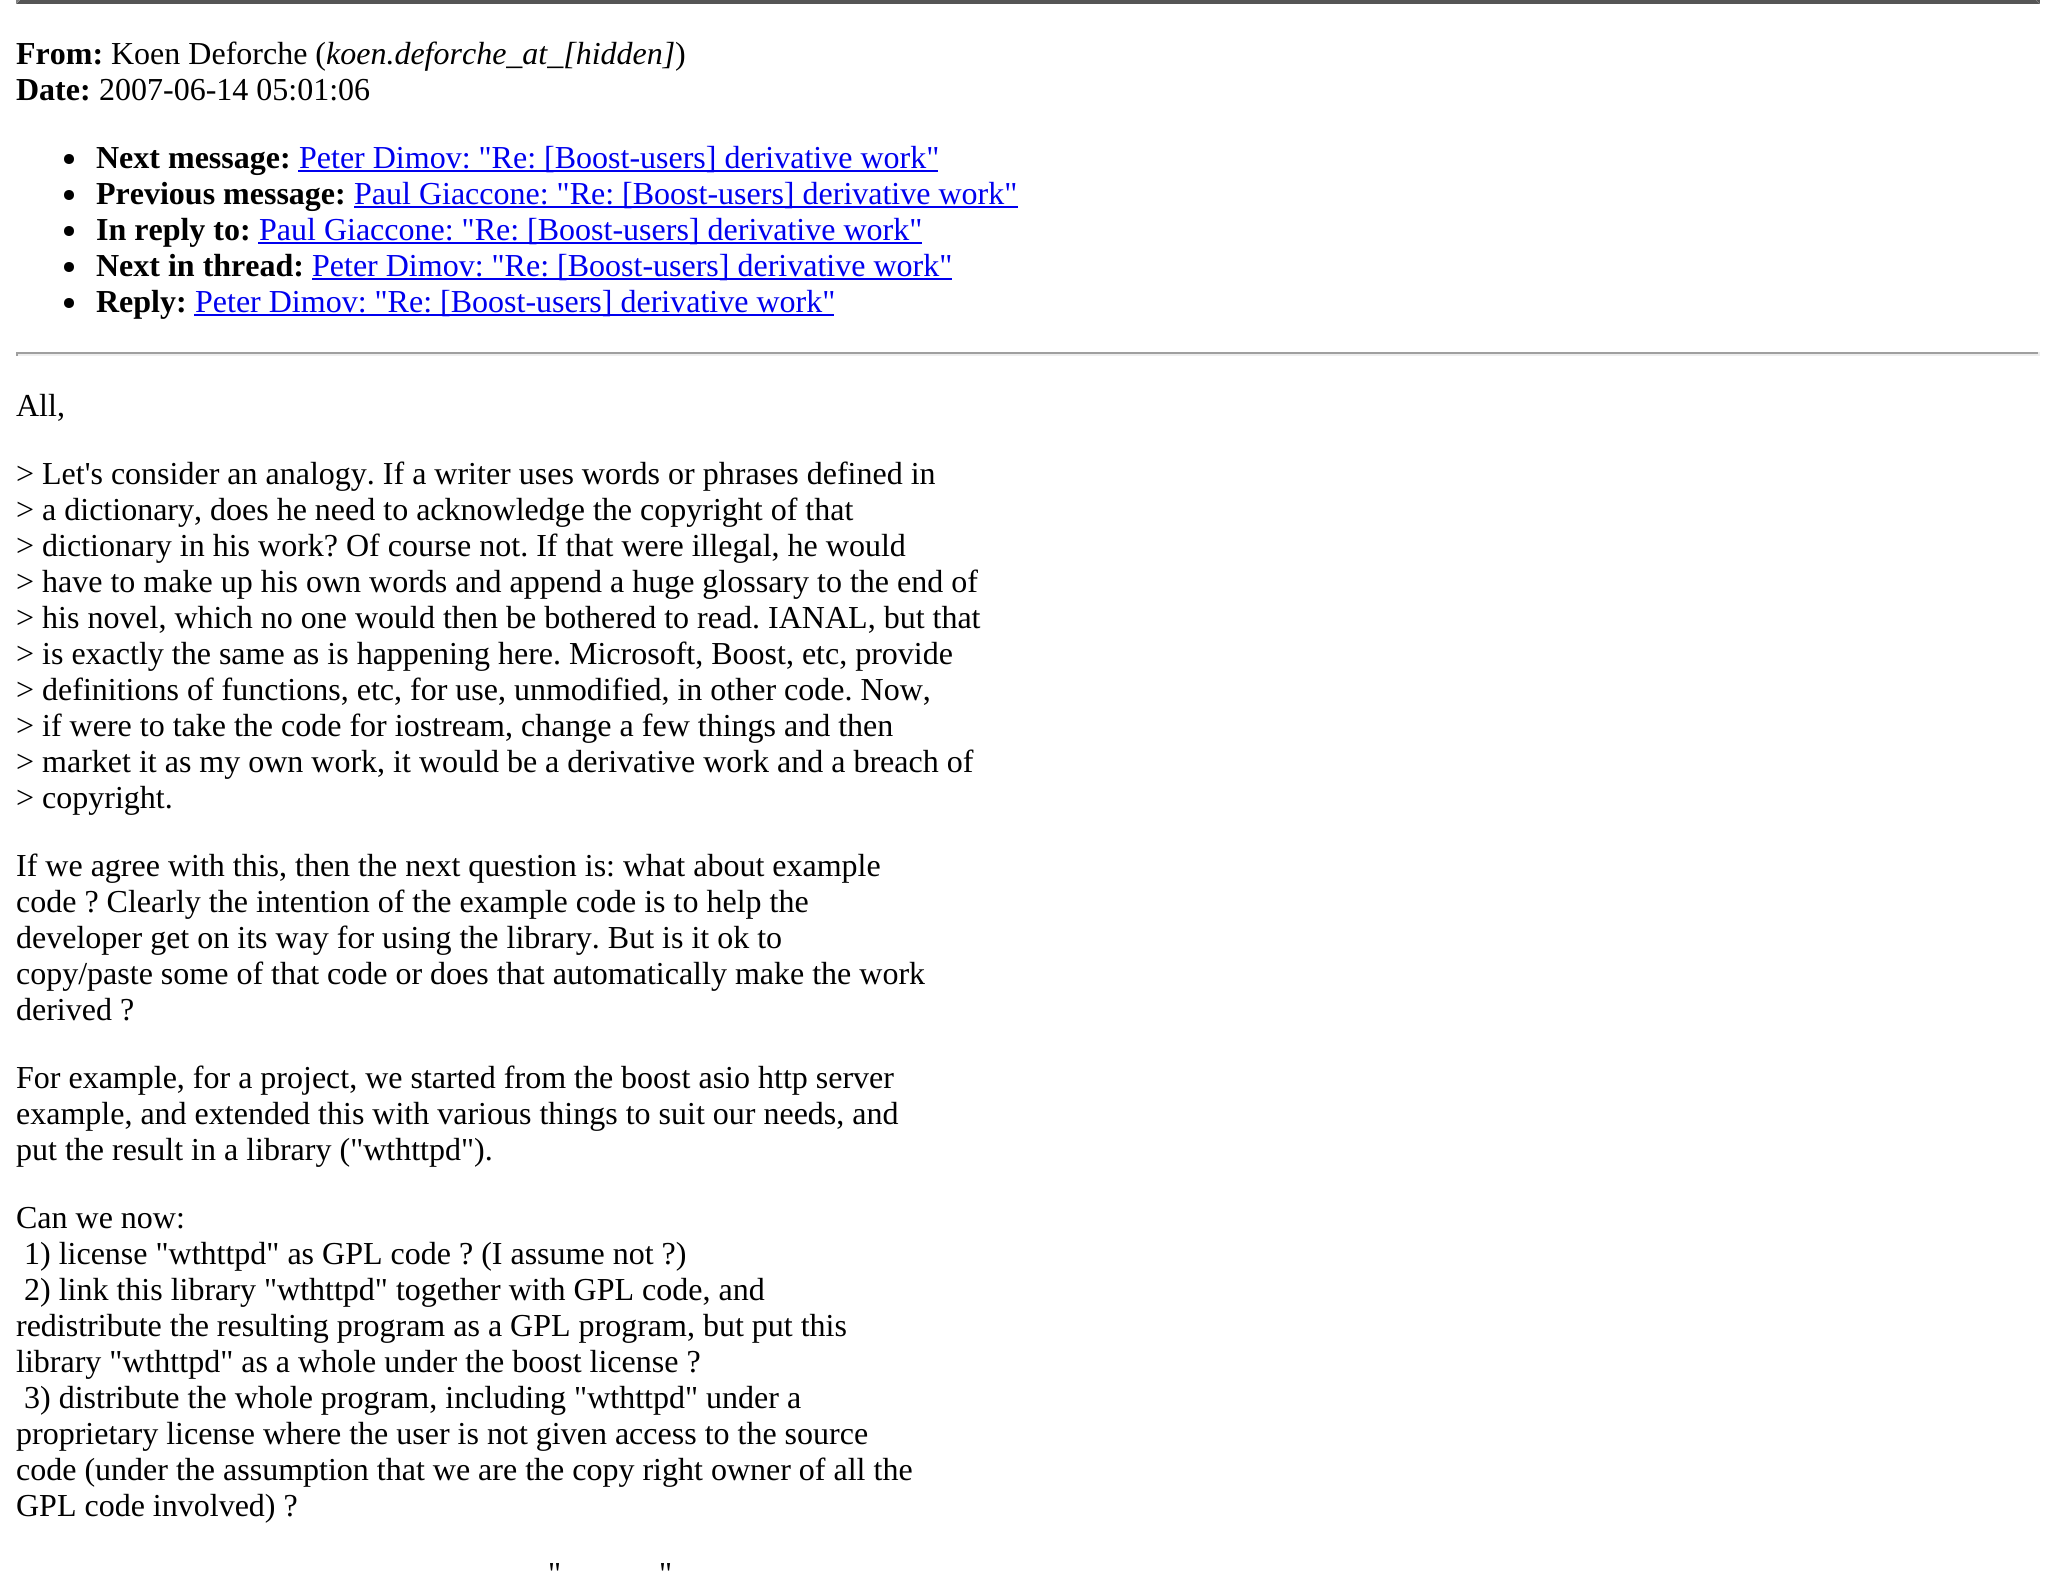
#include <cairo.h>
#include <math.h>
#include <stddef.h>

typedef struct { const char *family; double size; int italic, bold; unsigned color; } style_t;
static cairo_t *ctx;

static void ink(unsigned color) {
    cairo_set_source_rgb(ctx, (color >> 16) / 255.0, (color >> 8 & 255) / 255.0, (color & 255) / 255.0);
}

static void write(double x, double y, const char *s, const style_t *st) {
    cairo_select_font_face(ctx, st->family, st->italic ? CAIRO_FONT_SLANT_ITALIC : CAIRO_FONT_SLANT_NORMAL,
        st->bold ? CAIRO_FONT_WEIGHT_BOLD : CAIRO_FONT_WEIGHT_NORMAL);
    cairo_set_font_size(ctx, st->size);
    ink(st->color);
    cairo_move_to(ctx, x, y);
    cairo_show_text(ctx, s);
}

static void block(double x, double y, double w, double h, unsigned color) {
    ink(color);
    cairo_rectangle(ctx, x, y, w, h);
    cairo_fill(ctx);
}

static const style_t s1 = {"Liberation Serif", 32, 0, 1, 0x000000};
static const style_t s2 = {"Liberation Serif", 32, 0, 0, 0x000000};
static const style_t s3 = {"Liberation Serif", 32, 1, 0, 0x000000};
static const style_t s4 = {"Liberation Serif", 32, 0, 0, 0x0000ee};

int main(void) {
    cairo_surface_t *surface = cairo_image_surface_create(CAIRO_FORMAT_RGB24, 2055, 1572);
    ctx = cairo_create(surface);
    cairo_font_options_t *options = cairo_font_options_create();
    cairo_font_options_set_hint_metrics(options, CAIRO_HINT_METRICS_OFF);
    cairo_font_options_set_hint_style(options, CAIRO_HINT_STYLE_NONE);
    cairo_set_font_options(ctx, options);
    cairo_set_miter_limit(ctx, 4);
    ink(0xffffff);
    cairo_paint(ctx);
    ink(0x555555);
    cairo_new_path(ctx);
    cairo_move_to(ctx, 2040, -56);
    cairo_line_to(ctx, 2040, 4);
    cairo_line_to(ctx, 2036, 0);
    cairo_line_to(ctx, 2036, -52);
    cairo_close_path(ctx);
    cairo_fill(ctx);
    cairo_new_path(ctx);
    cairo_move_to(ctx, 2040, 4);
    cairo_line_to(ctx, 16, 4);
    cairo_line_to(ctx, 20, 0);
    cairo_line_to(ctx, 2036, 0);
    cairo_close_path(ctx);
    cairo_fill(ctx);
    ink(0x808080);
    cairo_new_path(ctx);
    cairo_move_to(ctx, 16, 4);
    cairo_line_to(ctx, 16, -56);
    cairo_line_to(ctx, 20, -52);
    cairo_line_to(ctx, 20, 0);
    cairo_close_path(ctx);
    cairo_fill(ctx);
    write(16, 64, "From:", &s1);
    write(111, 64, "Koen Deforche (", &s2);
    write(326, 64, "koen.deforche_at_[hidden]", &s3);
    write(675, 64, ")", &s2);
    write(16, 100, "Date:", &s1);
    write(99, 100, "2007-06-14 05:01:06", &s2);
    cairo_new_path(ctx);
    cairo_arc(ctx, 69, 159, 5, 0, 2 * M_PI);
    cairo_fill(ctx);
    write(96, 168, "Next message:", &s1);
    block(298, 170, 640, 2, 0x0000ee);
    write(299, 168, "Peter Dimov: \"Re: [Boost-users] derivative work\"", &s4);
    ink(0x000000);
    cairo_new_path(ctx);
    cairo_arc(ctx, 69, 195, 5, 0, 2 * M_PI);
    cairo_fill(ctx);
    write(96, 204, "Previous message:", &s1);
    block(354, 206, 664, 2, 0x0000ee);
    write(354, 204, "Paul Giaccone: \"Re: [Boost-users] derivative work\"", &s4);
    ink(0x000000);
    cairo_new_path(ctx);
    cairo_arc(ctx, 69, 231, 5, 0, 2 * M_PI);
    cairo_fill(ctx);
    write(96, 240, "In reply to:", &s1);
    block(258, 242, 664, 2, 0x0000ee);
    write(259, 240, "Paul Giaccone: \"Re: [Boost-users] derivative work\"", &s4);
    ink(0x000000);
    cairo_new_path(ctx);
    cairo_arc(ctx, 69, 267, 5, 0, 2 * M_PI);
    cairo_fill(ctx);
    write(96, 276, "Next in thread:", &s1);
    block(312, 278, 640, 2, 0x0000ee);
    write(312, 276, "Peter Dimov: \"Re: [Boost-users] derivative work\"", &s4);
    ink(0x000000);
    cairo_new_path(ctx);
    cairo_arc(ctx, 69, 303, 5, 0, 2 * M_PI);
    cairo_fill(ctx);
    write(96, 312, "Reply:", &s1);
    block(194, 314, 640, 2, 0x0000ee);
    write(195, 312, "Peter Dimov: \"Re: [Boost-users] derivative work\"", &s4);
    block(16, 352, 2024, 2, 0x9f9f9f);
    block(2038, 352, 2, 4, 0xeeeeee);
    block(16, 354, 2024, 2, 0xeeeeee);
    block(16, 352, 2, 4, 0x9f9f9f);
    write(16, 416, "All,", &s2);
    write(16, 484, "> Let's consider an analogy. If a writer uses words or phrases defined in", &s2);
    write(16, 520, "> a dictionary, does he need to acknowledge the copyright of that", &s2);
    write(16, 556, "> dictionary in his work? Of course not. If that were illegal, he would", &s2);
    write(16, 592, "> have to make up his own words and append a huge glossary to the end of", &s2);
    write(16, 628, "> his novel, which no one would then be bothered to read. IANAL, but that", &s2);
    write(16, 664, "> is exactly the same as is happening here. Microsoft, Boost, etc, provide", &s2);
    write(16, 700, "> definitions of functions, etc, for use, unmodified, in other code. Now,", &s2);
    write(16, 736, "> if were to take the code for iostream, change a few things and then", &s2);
    write(16, 772, "> market it as my own work, it would be a derivative work and a breach of", &s2);
    write(16, 808, "> copyright.", &s2);
    write(16, 876, "If we agree with this, then the next question is: what about example", &s2);
    write(16, 912, "code ? Clearly the intention of the example code is to help the", &s2);
    write(16, 948, "developer get on its way for using the library. But is it ok to", &s2);
    write(16, 984, "copy/paste some of that code or does that automatically make the work", &s2);
    write(16, 1020, "derived ?", &s2);
    write(16, 1088, "For example, for a project, we started from the boost asio http server", &s2);
    write(16, 1124, "example, and extended this with various things to suit our needs, and", &s2);
    write(16, 1160, "put the result in a library (\"wthttpd\").", &s2);
    write(16, 1228, "Can we now:", &s2);
    write(24, 1264, "1) license \"wthttpd\" as GPL code ? (I assume not ?)", &s2);
    write(24, 1300, "2) link this library \"wthttpd\" together with GPL code, and", &s2);
    write(16, 1336, "redistribute the resulting program as a GPL program, but put this", &s2);
    write(16, 1372, "library \"wthttpd\" as a whole under the boost license ?", &s2);
    write(24, 1408, "3) distribute the whole program, including \"wthttpd\" under a", &s2);
    write(16, 1444, "proprietary license where the user is not given access to the source", &s2);
    write(16, 1480, "code (under the assumption that we are the copy right owner of all the", &s2);
    write(16, 1516, "GPL code involved) ?", &s2);
    write(548, 1584, "\"", &s2);
    write(659, 1584, "\"", &s2);
    cairo_surface_write_to_png(surface, "screenshot.png");
    cairo_font_options_destroy(options);
    cairo_destroy(ctx);
    cairo_surface_destroy(surface);
    return 0;
}
